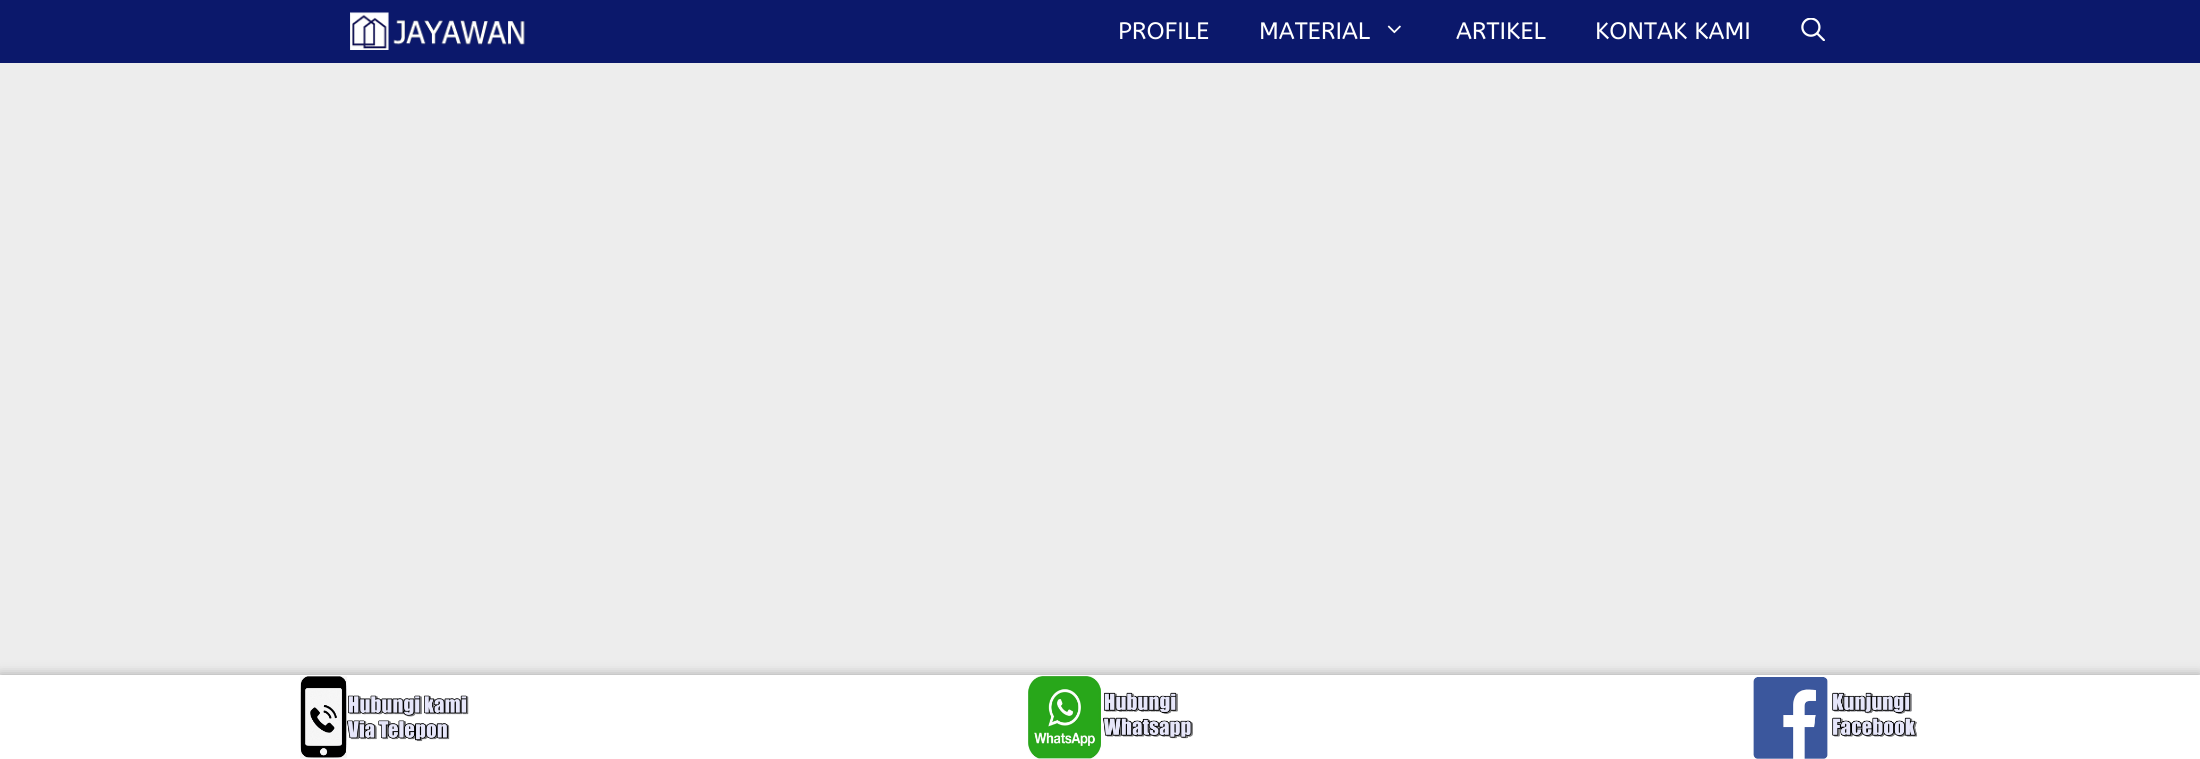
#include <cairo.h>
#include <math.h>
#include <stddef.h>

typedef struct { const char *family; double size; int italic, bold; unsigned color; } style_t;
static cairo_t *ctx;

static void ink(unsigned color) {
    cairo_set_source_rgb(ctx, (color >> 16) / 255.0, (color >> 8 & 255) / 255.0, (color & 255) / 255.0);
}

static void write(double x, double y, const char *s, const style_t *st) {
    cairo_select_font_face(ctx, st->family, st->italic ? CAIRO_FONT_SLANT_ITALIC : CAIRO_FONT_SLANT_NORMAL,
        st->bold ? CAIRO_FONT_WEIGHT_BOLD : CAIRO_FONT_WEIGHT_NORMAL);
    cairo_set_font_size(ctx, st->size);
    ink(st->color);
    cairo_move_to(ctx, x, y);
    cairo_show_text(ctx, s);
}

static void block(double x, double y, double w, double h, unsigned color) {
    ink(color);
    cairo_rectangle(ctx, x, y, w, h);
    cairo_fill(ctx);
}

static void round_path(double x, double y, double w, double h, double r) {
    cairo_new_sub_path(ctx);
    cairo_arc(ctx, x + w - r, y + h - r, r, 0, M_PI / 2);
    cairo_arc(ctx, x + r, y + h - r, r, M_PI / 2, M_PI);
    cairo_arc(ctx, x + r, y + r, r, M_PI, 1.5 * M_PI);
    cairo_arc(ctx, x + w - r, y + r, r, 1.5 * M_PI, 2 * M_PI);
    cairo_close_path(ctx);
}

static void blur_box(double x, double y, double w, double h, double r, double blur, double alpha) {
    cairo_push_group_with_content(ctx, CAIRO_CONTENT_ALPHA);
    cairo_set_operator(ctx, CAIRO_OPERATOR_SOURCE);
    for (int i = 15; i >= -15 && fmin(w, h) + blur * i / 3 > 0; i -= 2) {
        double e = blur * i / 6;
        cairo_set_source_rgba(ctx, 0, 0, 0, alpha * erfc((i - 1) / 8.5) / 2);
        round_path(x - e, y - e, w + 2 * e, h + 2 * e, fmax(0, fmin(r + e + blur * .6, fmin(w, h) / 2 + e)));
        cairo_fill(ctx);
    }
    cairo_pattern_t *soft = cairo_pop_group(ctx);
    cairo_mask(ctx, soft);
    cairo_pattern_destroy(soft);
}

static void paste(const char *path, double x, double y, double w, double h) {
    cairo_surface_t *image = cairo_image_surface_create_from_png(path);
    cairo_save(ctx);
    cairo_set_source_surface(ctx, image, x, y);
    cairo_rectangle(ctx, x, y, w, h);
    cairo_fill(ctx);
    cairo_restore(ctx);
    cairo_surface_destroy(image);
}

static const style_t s1 = {"ABeeZee", 23.75, 0, 0, 0xffffff};

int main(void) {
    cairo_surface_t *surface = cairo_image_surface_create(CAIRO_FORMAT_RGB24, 2200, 759);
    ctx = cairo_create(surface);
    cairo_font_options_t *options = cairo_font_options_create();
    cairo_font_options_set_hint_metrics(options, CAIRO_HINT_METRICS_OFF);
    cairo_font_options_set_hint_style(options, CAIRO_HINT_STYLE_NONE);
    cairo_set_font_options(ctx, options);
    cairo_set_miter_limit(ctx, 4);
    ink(0xededed);
    cairo_paint(ctx);
    block(0, 0, 2200, 63, 0x0b186b);
    paste("pic1.png", 350, 12, 175, 38);
    write(1118, 39, "PROFILE", &s1);
    write(1259, 39, "MATERIAL", &s1);
    paste("pic2.png", 1387, 25, 14, 9);
    write(1456, 39, "ARTIKEL", &s1);
    write(1595, 39, "KONTAK KAMI", &s1);
    paste("pic3.png", 1801, 18, 24, 23);
    ink(0x323232);
    blur_box(0, 675, 2200, 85, 0, 6, 0.4);
    block(0, 675, 2200, 84, 0xffffff);
    paste("pic4.png", 300, 676, 169, 83);
    paste("pic5.png", 1028, 676, 165, 83);
    paste("pic6.png", 1753, 677, 165, 82);
    cairo_surface_write_to_png(surface, "screenshot.png");
    cairo_font_options_destroy(options);
    cairo_destroy(ctx);
    cairo_surface_destroy(surface);
    return 0;
}
